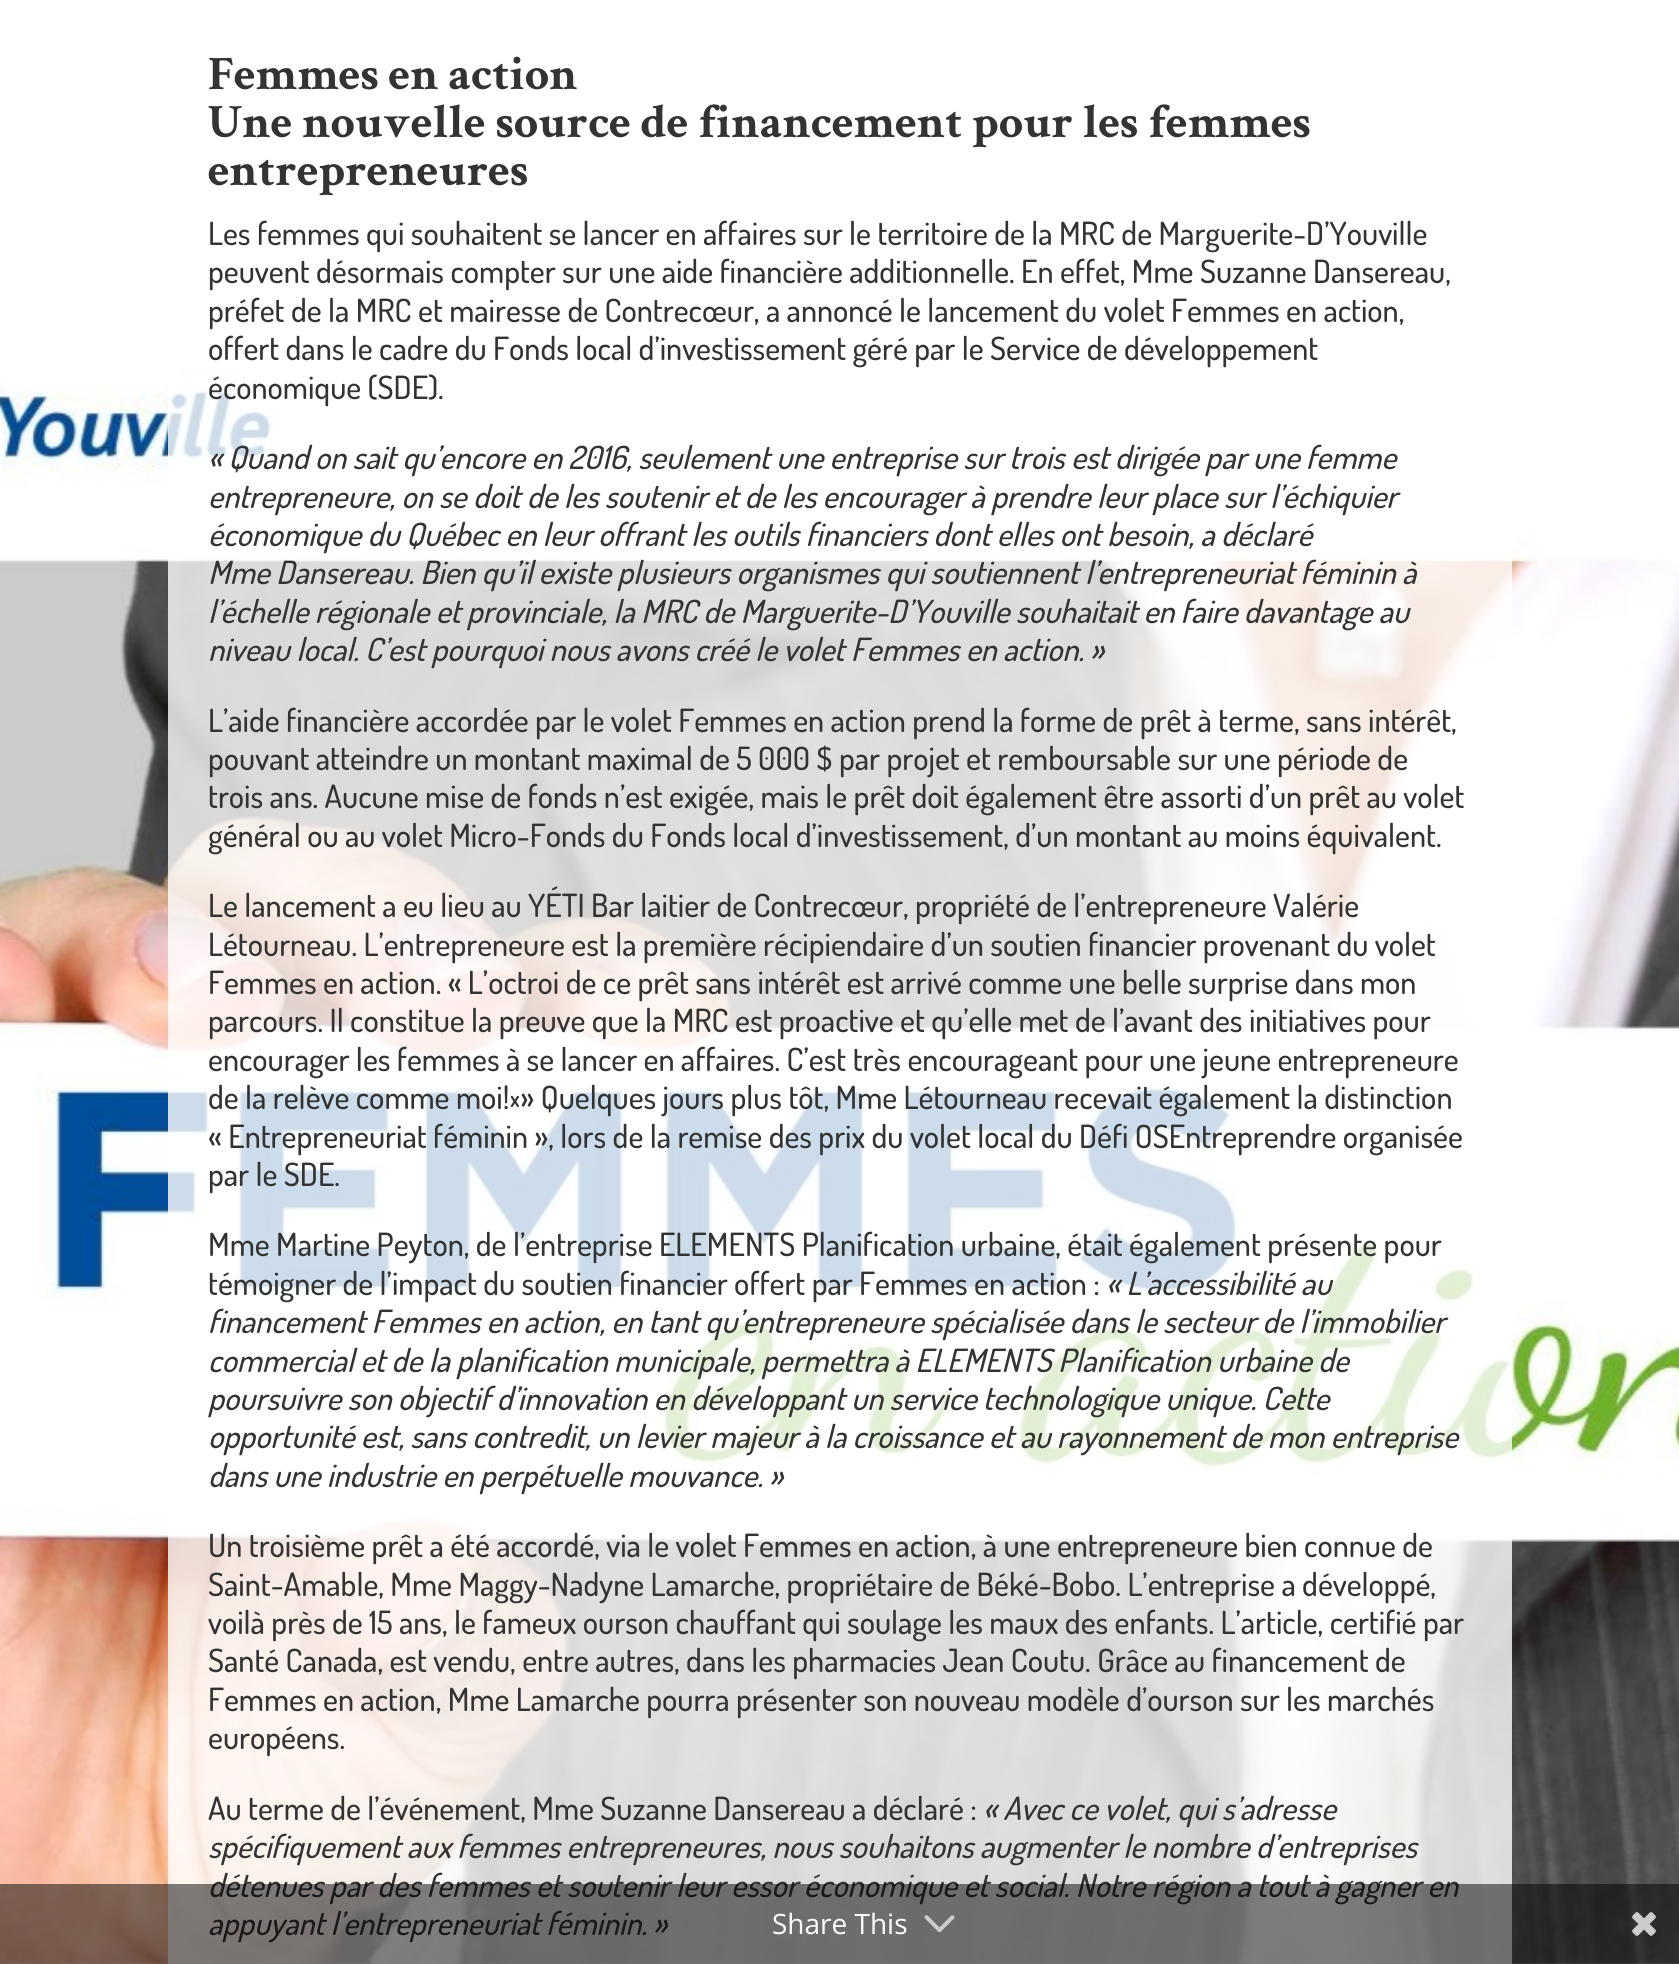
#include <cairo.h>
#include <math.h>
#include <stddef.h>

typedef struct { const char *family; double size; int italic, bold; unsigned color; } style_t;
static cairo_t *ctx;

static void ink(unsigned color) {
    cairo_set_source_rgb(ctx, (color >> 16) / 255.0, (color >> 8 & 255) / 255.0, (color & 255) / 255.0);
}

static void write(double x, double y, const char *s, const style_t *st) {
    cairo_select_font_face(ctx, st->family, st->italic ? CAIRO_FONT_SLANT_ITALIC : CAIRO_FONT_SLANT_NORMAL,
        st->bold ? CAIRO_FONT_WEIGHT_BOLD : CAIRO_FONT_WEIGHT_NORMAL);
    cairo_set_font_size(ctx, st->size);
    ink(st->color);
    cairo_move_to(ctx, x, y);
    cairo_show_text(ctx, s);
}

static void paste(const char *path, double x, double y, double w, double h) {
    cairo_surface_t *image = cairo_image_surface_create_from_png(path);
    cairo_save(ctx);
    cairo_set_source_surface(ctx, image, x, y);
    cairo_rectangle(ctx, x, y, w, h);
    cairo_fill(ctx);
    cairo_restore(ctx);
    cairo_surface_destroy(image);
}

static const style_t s1 = {"Crimson Text", 48, 0, 1, 0x333333};
static const style_t s2 = {"Dosis Medium", 32, 0, 0, 0x333333};
static const style_t s3 = {"Dosis Medium", 32, 1, 0, 0x333333};
static const style_t s4 = {"Open Sans", 28, 0, 0, 0xffffff};

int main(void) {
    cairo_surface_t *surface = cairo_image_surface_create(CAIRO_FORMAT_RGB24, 1679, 1964);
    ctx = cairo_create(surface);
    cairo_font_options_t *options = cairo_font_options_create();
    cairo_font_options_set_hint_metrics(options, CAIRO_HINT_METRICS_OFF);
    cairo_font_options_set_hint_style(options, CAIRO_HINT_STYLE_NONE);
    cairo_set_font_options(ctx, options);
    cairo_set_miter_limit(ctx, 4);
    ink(0xffffff);
    cairo_paint(ctx);
    paste("pic1.png", 0, 367, 1679, 1597);
    cairo_set_source_rgba(ctx, 1, 1, 1, 0.8);
    cairo_rectangle(ctx, 168, 377, 1344, 1587);
    cairo_fill(ctx);
    write(208, 89, "Femmes en action", &s1);
    write(208, 137, "Une nouvelle source de financement pour les femmes", &s1);
    write(208, 185, "entrepreneures", &s1);
    write(208, 245, "Les femmes qui souhaitent se lancer en affaires sur le territoire de la MRC de Marguerite-D’Youville", &s2);
    write(208, 283, "peuvent désormais compter sur une aide financière additionnelle. En effet, Mme Suzanne Dansereau,", &s2);
    write(208, 322, "préfet de la MRC et mairesse de Contrecœur, a annoncé le lancement du volet Femmes en action,", &s2);
    write(208, 360, "offert dans le cadre du Fonds local d’investissement géré par le Service de développement", &s2);
    write(208, 399, "économique (SDE).", &s2);
    write(208, 469, "« Quand on sait qu’encore en 2016, seulement une entreprise sur trois est dirigée par une femme", &s3);
    write(208, 508, "entrepreneure, on se doit de les soutenir et de les encourager à prendre leur place sur l’échiquier", &s3);
    write(208, 546, "économique du Québec en leur offrant les outils financiers dont elles ont besoin, a déclaré", &s3);
    write(208, 584, "Mme Dansereau. Bien qu’il existe plusieurs organismes qui soutiennent l’entrepreneuriat féminin à", &s3);
    write(208, 623, "l’échelle régionale et provinciale, la MRC de Marguerite-D’Youville souhaitait en faire davantage au", &s3);
    write(208, 661, "niveau local. C’est pourquoi nous avons créé le volet Femmes en action. »", &s3);
    write(208, 732, "L’aide financière accordée par le volet Femmes en action prend la forme de prêt à terme, sans intérêt,", &s2);
    write(208, 770, "pouvant atteindre un montant maximal de 5 000 $ par projet et remboursable sur une période de", &s2);
    write(208, 808, "trois ans. Aucune mise de fonds n’est exigée, mais le prêt doit également être assorti d’un prêt au volet", &s2);
    write(208, 847, "général ou au volet Micro-Fonds du Fonds local d’investissement, d’un montant au moins équivalent.", &s2);
    write(208, 917, "Le lancement a eu lieu au YÉTI Bar laitier de Contrecœur, propriété de l’entrepreneure Valérie", &s2);
    write(208, 956, "Létourneau. L’entrepreneure est la première récipiendaire d’un soutien financier provenant du volet", &s2);
    write(208, 994, "Femmes en action. « L’octroi de ce prêt sans intérêt est arrivé comme une belle surprise dans mon", &s2);
    write(208, 1032, "parcours. Il constitue la preuve que la MRC est proactive et qu’elle met de l’avant des initiatives pour", &s2);
    write(208, 1071, "encourager les femmes à se lancer en affaires. C’est très encourageant pour une jeune entrepreneure", &s2);
    write(208, 1109, "de la relève comme moi! » Quelques jours plus tôt, Mme Létourneau recevait également la distinction", &s2);
    write(208, 1148, "« Entrepreneuriat féminin », lors de la remise des prix du volet local du Défi OSEntreprendre organisée", &s2);
    write(208, 1186, "par le SDE.", &s2);
    write(208, 1256, "Mme Martine Peyton, de l’entreprise ELEMENTS Planification urbaine, était également présente pour", &s2);
    write(208, 1295, "témoigner de l’impact du soutien financier offert par Femmes en action :", &s2);
    write(1106, 1295, "« L’accessibilité au", &s3);
    write(208, 1333, "financement Femmes en action, en tant qu’entrepreneure spécialisée dans le secteur de l’immobilier", &s3);
    write(208, 1372, "commercial et de la planification municipale, permettra à ELEMENTS Planification urbaine de", &s3);
    write(208, 1410, "poursuivre son objectif d’innovation en développant un service technologique unique. Cette", &s3);
    write(208, 1448, "opportunité est, sans contredit, un levier majeur à la croissance et au rayonnement de mon entreprise", &s3);
    write(208, 1487, "dans une industrie en perpétuelle mouvance. »", &s3);
    write(208, 1557, "Un troisième prêt a été accordé, via le volet Femmes en action, à une entrepreneure bien connue de", &s2);
    write(208, 1596, "Saint-Amable, Mme Maggy-Nadyne Lamarche, propriétaire de Béké-Bobo. L’entreprise a développé,", &s2);
    write(208, 1634, "voilà près de 15 ans, le fameux ourson chauffant qui soulage les maux des enfants. L’article, certifié par", &s2);
    write(208, 1672, "Santé Canada, est vendu, entre autres, dans les pharmacies Jean Coutu. Grâce au financement de", &s2);
    write(208, 1711, "Femmes en action, Mme Lamarche pourra présenter son nouveau modèle d’ourson sur les marchés", &s2);
    write(208, 1749, "européens.", &s2);
    write(208, 1820, "Au terme de l’événement, Mme Suzanne Dansereau a déclaré :", &s2);
    write(983, 1820, "« Avec ce volet, qui s’adresse", &s3);
    write(208, 1858, "spécifiquement aux femmes entrepreneures, nous souhaitons augmenter le nombre d’entreprises", &s3);
    write(208, 1897, "détenues par des femmes et soutenir leur essor économique et social. Notre région a tout à gagner en", &s3);
    write(208, 1935, "appuyant l’entrepreneuriat féminin. »", &s3);
    cairo_set_source_rgba(ctx, 0, 0, 0, 0.5);
    cairo_rectangle(ctx, 0, 1884, 1679, 80);
    cairo_fill(ctx);
    write(772, 1934, "Share This", &s4);
    paste("pic2.png", 924, 1915, 31, 18);
    paste("pic3.png", 1632, 1912, 24, 24);
    cairo_surface_write_to_png(surface, "screenshot.png");
    cairo_font_options_destroy(options);
    cairo_destroy(ctx);
    cairo_surface_destroy(surface);
    return 0;
}
